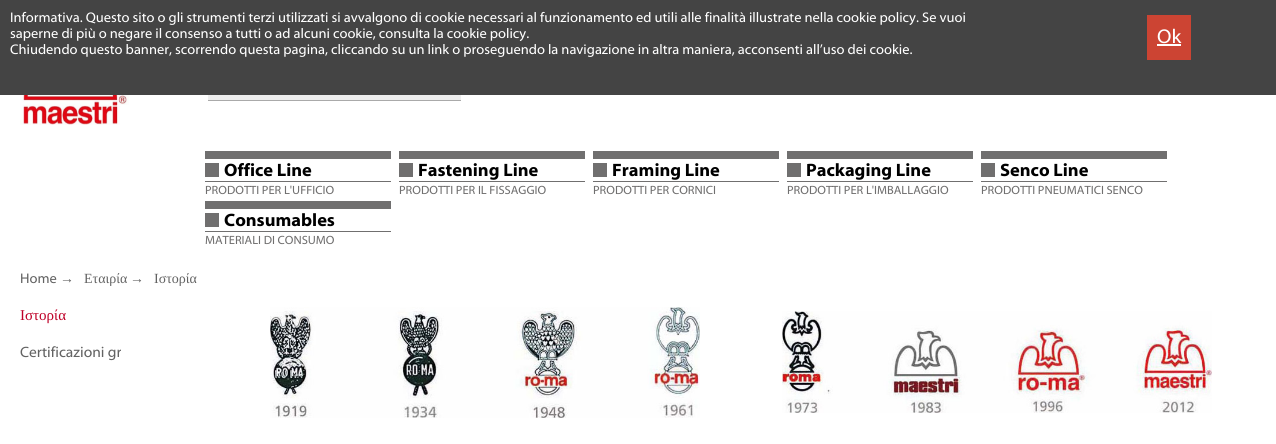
#include <cairo.h>
#include <math.h>
#include <stddef.h>

typedef struct { const char *family; double size; int italic, bold; unsigned color; } style_t;
static cairo_t *ctx;

static void ink(unsigned color) {
    cairo_set_source_rgb(ctx, (color >> 16) / 255.0, (color >> 8 & 255) / 255.0, (color & 255) / 255.0);
}

static void write(double x, double y, const char *s, const style_t *st) {
    cairo_select_font_face(ctx, st->family, st->italic ? CAIRO_FONT_SLANT_ITALIC : CAIRO_FONT_SLANT_NORMAL,
        st->bold ? CAIRO_FONT_WEIGHT_BOLD : CAIRO_FONT_WEIGHT_NORMAL);
    cairo_set_font_size(ctx, st->size);
    ink(st->color);
    cairo_move_to(ctx, x, y);
    cairo_show_text(ctx, s);
}

static void block(double x, double y, double w, double h, unsigned color) {
    ink(color);
    cairo_rectangle(ctx, x, y, w, h);
    cairo_fill(ctx);
}

static void paste(const char *path, double x, double y, double w, double h) {
    cairo_surface_t *image = cairo_image_surface_create_from_png(path);
    cairo_save(ctx);
    cairo_set_source_surface(ctx, image, x, y);
    cairo_rectangle(ctx, x, y, w, h);
    cairo_fill(ctx);
    cairo_restore(ctx);
    cairo_surface_destroy(image);
}

static const style_t s1 = {"Myriad", 14, 0, 0, 0xffffff};
static const style_t s2 = {"Myriad", 20, 0, 0, 0xffffff};
static const style_t s3 = {"Myriad", 18, 0, 1, 0x000000};
static const style_t s4 = {"Myriad", 12, 0, 0, 0x706f6f};
static const style_t s5 = {"Myriad", 14, 0, 0, 0x636363};
static const style_t s6 = {"Liberation Serif", 14, 0, 0, 0x636363};
static const style_t s7 = {"Liberation Serif", 15, 0, 0, 0xbe0027};
static const style_t s8 = {"Myriad", 15, 0, 0, 0x636363};

int main(void) {
    cairo_surface_t *surface = cairo_image_surface_create(CAIRO_FORMAT_RGB24, 1276, 444);
    ctx = cairo_create(surface);
    cairo_font_options_t *options = cairo_font_options_create();
    cairo_font_options_set_hint_metrics(options, CAIRO_HINT_METRICS_OFF);
    cairo_font_options_set_hint_style(options, CAIRO_HINT_STYLE_NONE);
    cairo_set_font_options(ctx, options);
    cairo_set_miter_limit(ctx, 4);
    ink(0xffffff);
    cairo_paint(ctx);
    block(0, 0, 1276, 95, 0x444444);
    write(10, 22, "Informativa. Questo sito o gli strumenti terzi utilizzati si avvalgono di cookie necessari al funzionamento ed utili alle finalità illustrate nella cookie policy. Se vuoi", &s1);
    write(10, 38, "saperne di più o negare il consenso a tutti o ad alcuni cookie, consulta la cookie policy.", &s1);
    write(10, 54, "Chiudendo questo banner, scorrendo questa pagina, cliccando su un link o proseguendo la navigazione in altra maniera, acconsenti all’uso dei cookie.", &s1);
    block(1147, 15, 44, 45, 0xcc4433);
    write(1157, 43, "Ok", &s2);
    block(1157, 44, 24, 2, 0xffffff);
    paste("pic1.png", 20, 95, 109, 30);
    block(208, 95, 253, 5, 0xeeeeee);
    block(208, 100, 253, 1, 0xaaaaaa);
    write(224, 176, "Office Line", &s3);
    paste("pic2.png", 205, 151, 186, 31);
    write(205, 194, "PRODOTTI PER L'UFFICIO", &s4);
    write(418, 176, "Fastening Line", &s3);
    paste("pic3.png", 399, 151, 186, 31);
    write(399, 194, "PRODOTTI PER IL FISSAGGIO", &s4);
    write(612, 176, "Framing Line", &s3);
    paste("pic4.png", 593, 151, 186, 31);
    write(593, 194, "PRODOTTI PER CORNICI", &s4);
    write(806, 176, "Packaging Line", &s3);
    paste("pic5.png", 787, 151, 186, 31);
    write(787, 194, "PRODOTTI PER L'IMBALLAGGIO", &s4);
    write(1000, 176, "Senco Line", &s3);
    paste("pic6.png", 981, 151, 186, 31);
    write(981, 194, "PRODOTTI PNEUMATICI SENCO", &s4);
    write(224, 226, "Consumables", &s3);
    paste("pic7.png", 205, 201, 186, 31);
    write(205, 244, "MATERIALI DI CONSUMO", &s4);
    write(20, 283, "Home", &s5);
    write(60, 283, "→", &s6);
    write(84, 283, "Εταιρία", &s6);
    write(130, 283, "→", &s6);
    write(154, 283, "Ιστορία", &s6);
    write(20, 320, "Ιστορία", &s7);
    write(20, 357, "Certificazioni gr", &s8);
    paste("pic8.png", 270, 307, 430, 111);
    paste("pic9.png", 782, 311, 430, 102);
    cairo_surface_write_to_png(surface, "screenshot.png");
    cairo_font_options_destroy(options);
    cairo_destroy(ctx);
    cairo_surface_destroy(surface);
    return 0;
}
